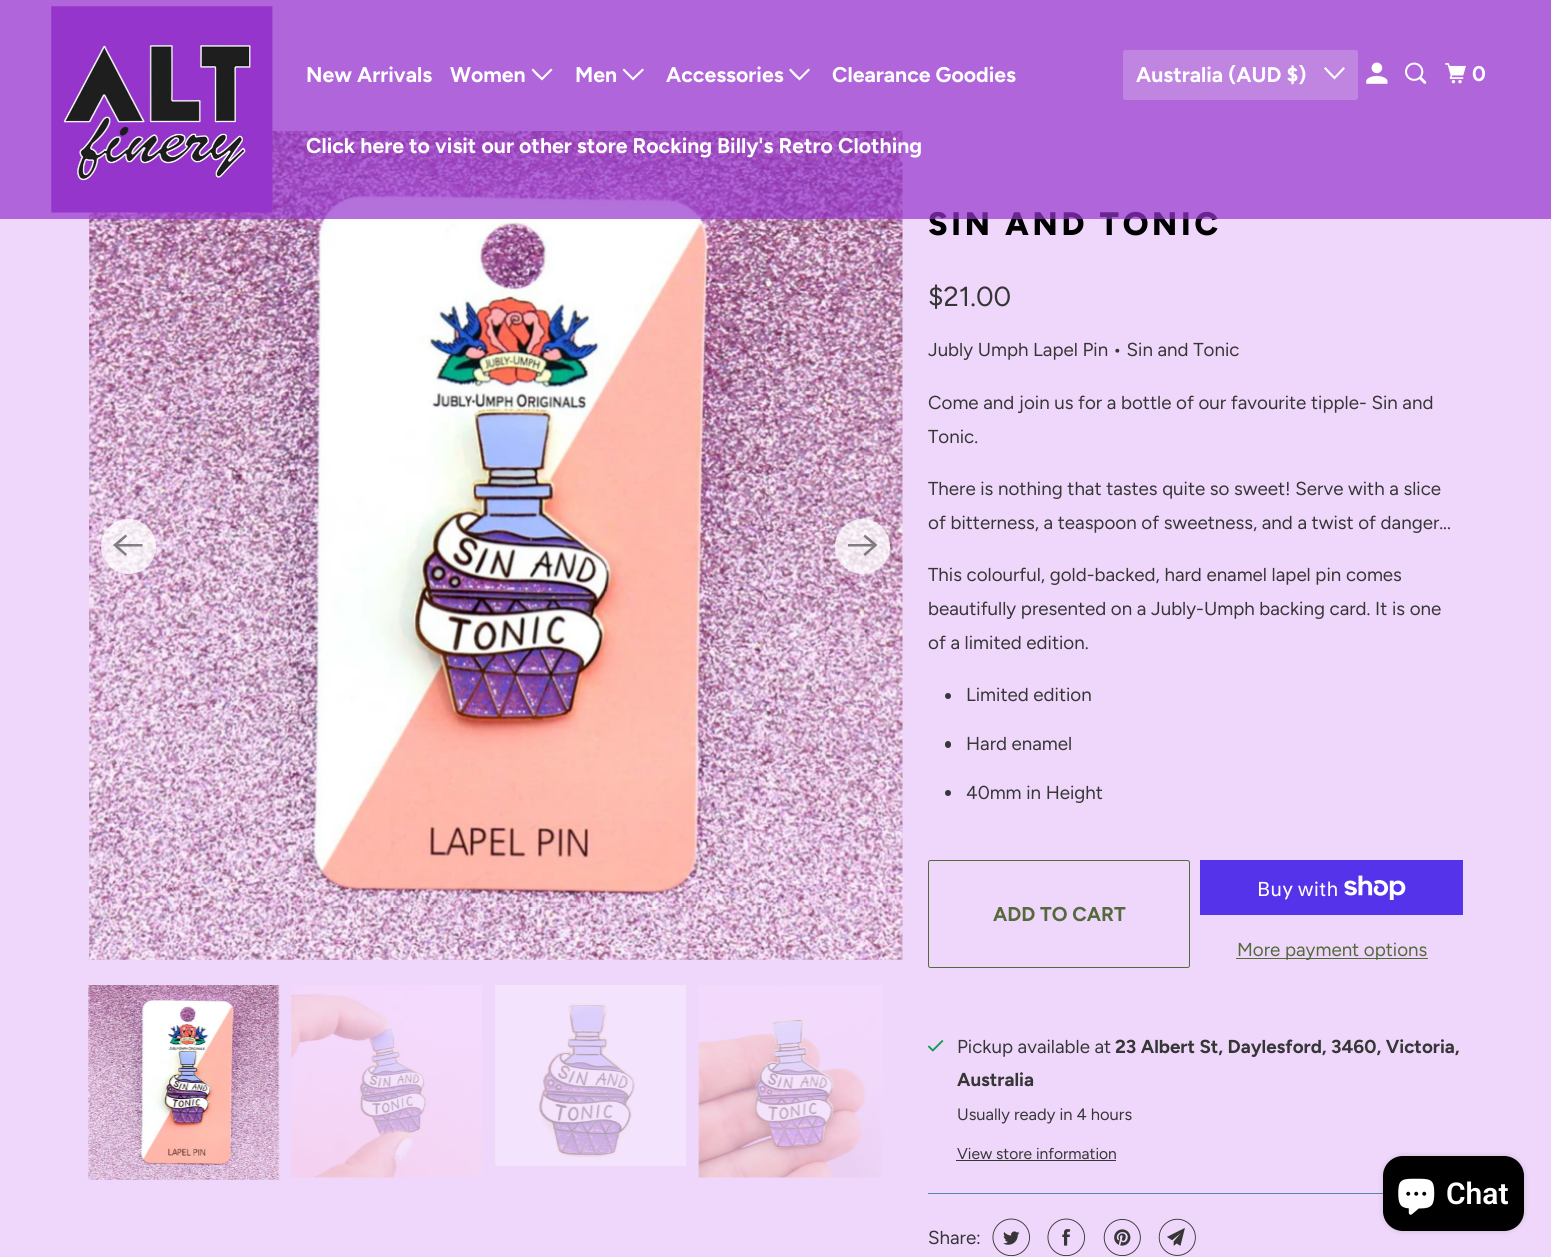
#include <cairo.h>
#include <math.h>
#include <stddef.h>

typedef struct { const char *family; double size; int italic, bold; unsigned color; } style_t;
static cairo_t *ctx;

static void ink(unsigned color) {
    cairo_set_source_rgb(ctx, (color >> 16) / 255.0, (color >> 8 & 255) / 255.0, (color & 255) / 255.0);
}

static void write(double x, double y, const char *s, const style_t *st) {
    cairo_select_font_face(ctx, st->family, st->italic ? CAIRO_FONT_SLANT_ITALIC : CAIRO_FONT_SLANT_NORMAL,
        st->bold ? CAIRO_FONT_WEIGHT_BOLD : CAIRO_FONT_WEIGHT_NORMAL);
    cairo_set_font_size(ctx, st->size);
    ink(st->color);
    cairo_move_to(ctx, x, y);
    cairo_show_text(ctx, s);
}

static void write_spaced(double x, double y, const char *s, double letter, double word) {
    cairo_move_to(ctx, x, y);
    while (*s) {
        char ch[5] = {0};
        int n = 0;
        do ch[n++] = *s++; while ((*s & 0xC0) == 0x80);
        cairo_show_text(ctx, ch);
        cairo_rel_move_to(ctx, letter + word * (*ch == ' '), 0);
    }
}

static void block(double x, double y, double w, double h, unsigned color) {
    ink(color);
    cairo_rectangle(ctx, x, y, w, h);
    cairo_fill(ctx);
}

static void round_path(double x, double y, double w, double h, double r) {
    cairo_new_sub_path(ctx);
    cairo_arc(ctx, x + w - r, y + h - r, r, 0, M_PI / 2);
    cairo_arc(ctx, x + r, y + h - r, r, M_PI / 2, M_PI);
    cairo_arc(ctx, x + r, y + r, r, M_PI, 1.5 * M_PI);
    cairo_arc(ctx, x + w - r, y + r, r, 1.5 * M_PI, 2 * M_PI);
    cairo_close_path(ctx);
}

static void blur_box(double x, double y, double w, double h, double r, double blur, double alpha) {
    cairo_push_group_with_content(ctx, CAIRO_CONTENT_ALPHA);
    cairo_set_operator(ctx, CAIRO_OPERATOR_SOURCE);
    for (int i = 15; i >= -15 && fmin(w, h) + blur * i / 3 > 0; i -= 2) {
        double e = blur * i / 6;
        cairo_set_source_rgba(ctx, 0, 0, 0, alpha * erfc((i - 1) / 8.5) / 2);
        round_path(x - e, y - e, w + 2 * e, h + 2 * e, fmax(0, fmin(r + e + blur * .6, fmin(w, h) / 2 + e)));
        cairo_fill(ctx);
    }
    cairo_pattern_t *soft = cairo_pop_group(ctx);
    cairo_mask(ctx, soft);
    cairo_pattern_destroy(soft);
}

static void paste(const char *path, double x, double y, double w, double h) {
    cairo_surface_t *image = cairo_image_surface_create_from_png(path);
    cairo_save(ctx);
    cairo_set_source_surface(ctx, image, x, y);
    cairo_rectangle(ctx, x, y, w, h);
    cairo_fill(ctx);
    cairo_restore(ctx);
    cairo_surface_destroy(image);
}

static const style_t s1 = {"Figtree", 21.25, 0, 1, 0xffffff};
static const style_t s2 = {"Figtree", 27.5, 0, 0, 0x363636};
static const style_t s3 = {"Figtree", 18.75, 0, 0, 0x363636};
static const style_t s4 = {"Figtree", 20, 0, 1, 0x546a3a};
static const style_t s5 = {"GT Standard", 20, 0, 0, 0xffffff};
static const style_t s6 = {"Figtree", 18.75, 0, 0, 0x546a3a};
static const style_t s7 = {"Figtree", 18.75, 0, 1, 0x363636};
static const style_t s8 = {"Figtree", 16.5, 0, 0, 0x363636};
static const style_t s9 = {"Figtree", 15.6, 0, 0, 0x363636};
static const style_t s10 = {"Roboto SemiBold", 30, 0, 0, 0xffffff};

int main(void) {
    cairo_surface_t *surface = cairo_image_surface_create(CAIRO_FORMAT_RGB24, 1551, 1257);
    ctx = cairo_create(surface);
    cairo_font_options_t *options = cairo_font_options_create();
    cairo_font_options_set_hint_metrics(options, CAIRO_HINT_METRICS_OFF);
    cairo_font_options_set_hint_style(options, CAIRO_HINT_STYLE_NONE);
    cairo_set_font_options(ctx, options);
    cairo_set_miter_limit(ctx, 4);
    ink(0xefd7fb);
    cairo_paint(ctx);
    paste("pic5.png", 89, 131, 814, 829);
    cairo_select_font_face(ctx, "Figtree ExtraBold", CAIRO_FONT_SLANT_NORMAL, CAIRO_FONT_WEIGHT_NORMAL);
    cairo_set_font_size(ctx, 32.5);
    ink(0x000000);
    write_spaced(928, 235, "SIN AND TONIC", 3.75, 0);
    cairo_set_source_rgba(ctx, 0.588, 0.208, 0.8, 0.7);
    cairo_rectangle(ctx, 0, 0, 1551, 219);
    cairo_fill(ctx);
    paste("pic1.png", 51, 6, 222, 207);
    write(306, 82, "New Arrivals", &s1);
    write(450, 82, "Women", &s1);
    cairo_new_path(ctx);
    cairo_move_to(ctx, 536.5, 75.5);
    cairo_line_to(ctx, 531.5, 70);
    cairo_line_to(ctx, 533, 68.5);
    cairo_line_to(ctx, 542, 77.5);
    cairo_line_to(ctx, 551, 68.5);
    cairo_line_to(ctx, 552.5, 70);
    cairo_line_to(ctx, 542, 80.5);
    cairo_close_path(ctx);
    cairo_fill(ctx);
    write(575, 82, "Men", &s1);
    cairo_new_path(ctx);
    cairo_move_to(ctx, 628, 75.5);
    cairo_line_to(ctx, 622.5, 70);
    cairo_line_to(ctx, 624, 68.5);
    cairo_line_to(ctx, 633, 77.5);
    cairo_line_to(ctx, 642.5, 68.5);
    cairo_line_to(ctx, 644, 70);
    cairo_line_to(ctx, 633, 80.5);
    cairo_close_path(ctx);
    cairo_fill(ctx);
    write(666, 82, "Accessories", &s1);
    cairo_new_path(ctx);
    cairo_move_to(ctx, 794, 75.5);
    cairo_line_to(ctx, 789, 70);
    cairo_line_to(ctx, 790.5, 68.5);
    cairo_line_to(ctx, 799.5, 77.5);
    cairo_line_to(ctx, 808.5, 68.5);
    cairo_line_to(ctx, 810, 70);
    cairo_line_to(ctx, 799.5, 80.5);
    cairo_close_path(ctx);
    cairo_fill(ctx);
    write(832, 82, "Clearance Goodies", &s1);
    write(306, 153, "Click here to visit our other store Rocking Billy's Retro Clothing", &s1);
    ink(0xc084e1);
    round_path(1123, 50, 235, 50, 2.5);
    cairo_fill(ctx);
    write(1136, 82, "Australia (AUD $)", &s1);
    cairo_new_path(ctx);
    cairo_move_to(ctx, 1329, 74);
    cairo_line_to(ctx, 1324, 68.5);
    cairo_line_to(ctx, 1325.5, 67);
    cairo_line_to(ctx, 1334.5, 76.5);
    cairo_line_to(ctx, 1343.5, 67);
    cairo_line_to(ctx, 1345, 68.5);
    cairo_line_to(ctx, 1334.5, 79.5);
    cairo_close_path(ctx);
    cairo_fill(ctx);
    paste("pic2.png", 1366, 62, 22, 22);
    paste("pic3.png", 1405, 62, 22, 22);
    paste("pic4.png", 1445, 63, 21, 21);
    write(1472, 81, "0", &s1);
    cairo_set_source_rgba(ctx, 1, 1, 1, 0.75);
    cairo_new_path(ctx);
    cairo_arc(ctx, 128.5, 546.5, 27.5, 0, 2 * M_PI);
    cairo_fill(ctx);
    cairo_set_source_rgba(ctx, 0.2, 0.2, 0.2, 0.6);
    cairo_new_path(ctx);
    cairo_move_to(ctx, 142.5, 544);
    cairo_line_to(ctx, 118.5, 544);
    cairo_line_to(ctx, 127, 536.5);
    cairo_line_to(ctx, 125.5, 534.5);
    cairo_line_to(ctx, 113, 545);
    cairo_line_to(ctx, 125.5, 556);
    cairo_line_to(ctx, 127, 554);
    cairo_line_to(ctx, 118.5, 546.5);
    cairo_line_to(ctx, 142.5, 546.5);
    cairo_close_path(ctx);
    cairo_fill(ctx);
    cairo_set_source_rgba(ctx, 1, 1, 1, 0.75);
    cairo_arc(ctx, 862.5, 546.5, 27.5, 0, 2 * M_PI);
    cairo_fill(ctx);
    cairo_set_source_rgba(ctx, 0.2, 0.2, 0.2, 0.6);
    cairo_new_path(ctx);
    cairo_move_to(ctx, 848, 546.5);
    cairo_line_to(ctx, 872, 546.5);
    cairo_line_to(ctx, 863.5, 554);
    cairo_line_to(ctx, 865, 556);
    cairo_line_to(ctx, 877.5, 545);
    cairo_line_to(ctx, 865, 534.5);
    cairo_line_to(ctx, 863.5, 536.5);
    cairo_line_to(ctx, 872, 544);
    cairo_line_to(ctx, 848, 544);
    cairo_close_path(ctx);
    cairo_fill(ctx);
    paste("pic6.png", 88, 985, 192, 195);
    paste("pic7.png", 291, 985, 191, 193);
    paste("pic8.png", 495, 985, 191, 181);
    paste("pic9.png", 698, 985, 185, 193);
    write(928, 306, "$21.00", &s2);
    write(928, 356, "Jubly Umph Lapel Pin • Sin and Tonic", &s3);
    write(928, 409, "Come and join us for a bottle of our favourite tipple- Sin and", &s3);
    write(928, 443, "Tonic.", &s3);
    write(928, 495, "There is nothing that tastes quite so sweet! Serve with a slice", &s3);
    write(928, 529, "of bitterness, a teaspoon of sweetness, and a twist of danger...", &s3);
    write(928, 581, "This colourful, gold-backed, hard enamel lapel pin comes", &s3);
    write(928, 615, "beautifully presented on a Jubly-Umph backing card. It is one", &s3);
    write(928, 649, "of a limited edition.", &s3);
    cairo_new_path(ctx);
    cairo_arc(ctx, 948, 696, 3, 0, 2 * M_PI);
    cairo_fill(ctx);
    write(966, 701, "Limited edition", &s3);
    round_path(945, 741, 6, 7, 3);
    cairo_fill(ctx);
    write(966, 750, "Hard enamel", &s3);
    cairo_new_path(ctx);
    cairo_arc(ctx, 948, 793, 3, 0, 2 * M_PI);
    cairo_fill(ctx);
    write(966, 799, "40mm in Height", &s3);
    round_path(928.5, 860.5, 261, 107, 2);
    ink(0x546a3a);
    cairo_set_line_width(ctx, 1);
    cairo_stroke(ctx);
    write(993, 921, "ADD TO CART", &s4);
    block(1200, 860, 263, 55, 0x5433eb);
    write(1257, 896, "Buy with", &s5);
    paste("pic10.png", 1344, 875, 62, 25);
    block(1236, 958, 192, 1, 0x546a3a);
    write(1237, 956, "More payment options", &s6);
    paste("pic11.png", 928, 1039, 16, 13);
    write(957, 1053, "Pickup available at", &s3);
    write(1115, 1053, "23 Albert St, Daylesford, 3460, Victoria,", &s7);
    write(957, 1086, "Australia", &s7);
    write(957, 1120, "Usually ready in 4 hours", &s8);
    write(957, 1159, "View store information", &s9);
    block(956, 1160, 160, 1, 0x363636);
    block(928, 1193, 455, 1, 0x5888aa);
    write(928, 1244, "Share:", &s3);
    paste("pic12.png", 992, 1218, 38, 39);
    paste("pic13.png", 1047, 1218, 38, 39);
    paste("pic14.png", 1103, 1219, 38, 38);
    paste("pic15.png", 1158, 1218, 38, 38);
    ink(0x000000);
    blur_box(1383, 1156, 141, 75, 20, 3, 0.15);
    ink(0x000000);
    round_path(1383, 1156, 141, 75, 20);
    cairo_fill(ctx);
    paste("pic16.png", 1398, 1178, 37, 37);
    write(1446, 1204, "Chat", &s10);
    cairo_surface_write_to_png(surface, "screenshot.png");
    cairo_font_options_destroy(options);
    cairo_destroy(ctx);
    cairo_surface_destroy(surface);
    return 0;
}
